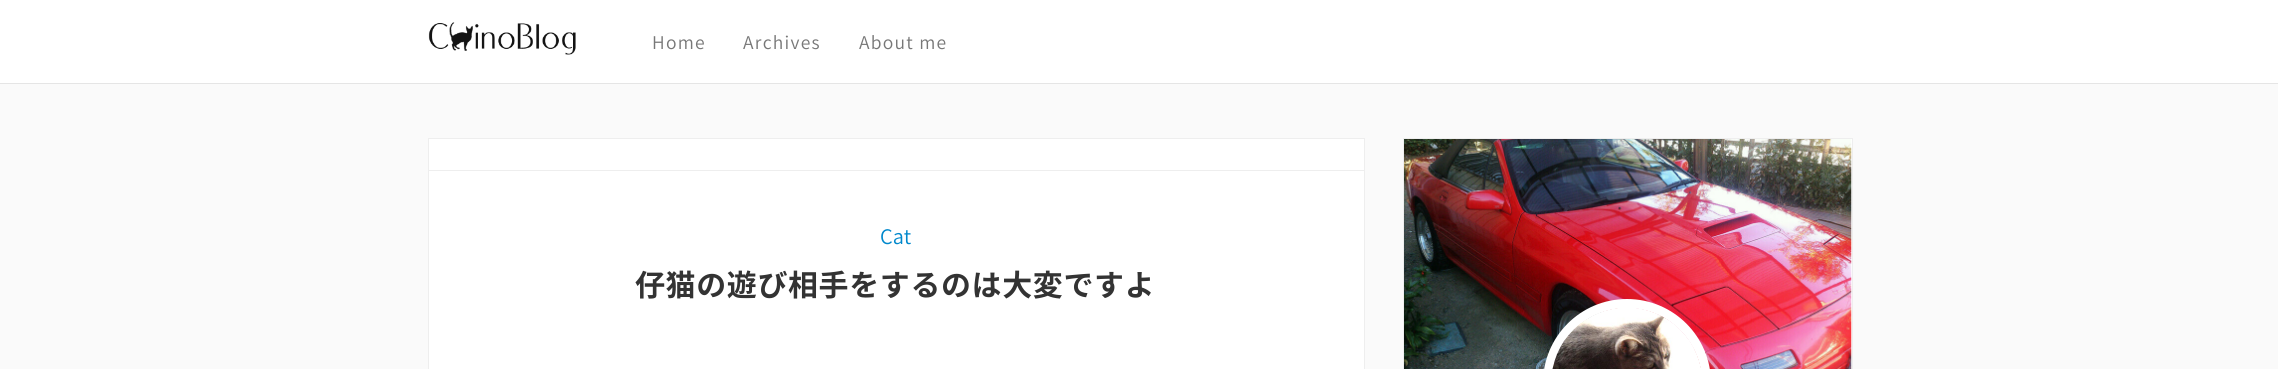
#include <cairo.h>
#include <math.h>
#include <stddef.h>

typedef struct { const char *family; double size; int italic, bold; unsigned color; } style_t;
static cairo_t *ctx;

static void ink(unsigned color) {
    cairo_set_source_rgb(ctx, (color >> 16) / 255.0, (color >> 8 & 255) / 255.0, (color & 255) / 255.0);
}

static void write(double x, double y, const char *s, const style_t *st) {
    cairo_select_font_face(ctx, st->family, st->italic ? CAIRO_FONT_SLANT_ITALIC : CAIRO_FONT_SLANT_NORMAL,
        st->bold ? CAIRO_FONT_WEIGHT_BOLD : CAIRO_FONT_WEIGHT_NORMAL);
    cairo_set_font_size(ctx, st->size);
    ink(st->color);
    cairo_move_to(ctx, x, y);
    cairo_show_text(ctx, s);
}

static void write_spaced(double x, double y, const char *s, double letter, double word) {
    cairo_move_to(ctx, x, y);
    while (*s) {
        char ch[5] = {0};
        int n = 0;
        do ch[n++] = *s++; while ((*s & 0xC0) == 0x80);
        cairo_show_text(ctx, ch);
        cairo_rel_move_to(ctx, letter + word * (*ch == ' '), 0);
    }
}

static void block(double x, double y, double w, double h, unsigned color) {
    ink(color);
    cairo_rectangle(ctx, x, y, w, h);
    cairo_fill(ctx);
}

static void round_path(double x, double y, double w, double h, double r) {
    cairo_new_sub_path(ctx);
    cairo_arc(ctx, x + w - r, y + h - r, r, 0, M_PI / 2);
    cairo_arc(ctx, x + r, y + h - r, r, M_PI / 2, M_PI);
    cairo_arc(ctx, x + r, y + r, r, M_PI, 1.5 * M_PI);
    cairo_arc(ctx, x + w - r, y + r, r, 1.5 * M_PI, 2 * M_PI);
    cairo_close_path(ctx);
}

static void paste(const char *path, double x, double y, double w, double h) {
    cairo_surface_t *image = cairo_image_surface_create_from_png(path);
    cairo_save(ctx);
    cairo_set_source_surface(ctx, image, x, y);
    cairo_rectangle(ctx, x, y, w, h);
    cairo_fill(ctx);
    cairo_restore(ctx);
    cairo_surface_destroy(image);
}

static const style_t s1 = {"Noto Sans JP Light", 20, 0, 0, 0x0088cc};

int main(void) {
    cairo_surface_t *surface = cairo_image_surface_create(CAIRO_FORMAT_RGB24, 2278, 369);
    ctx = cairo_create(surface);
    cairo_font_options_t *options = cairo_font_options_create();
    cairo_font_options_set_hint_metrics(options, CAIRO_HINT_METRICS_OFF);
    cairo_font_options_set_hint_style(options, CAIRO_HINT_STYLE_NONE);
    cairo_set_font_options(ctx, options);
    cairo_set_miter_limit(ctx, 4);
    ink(0xfafafa);
    cairo_paint(ctx);
    block(0, 0, 2278, 83, 0xffffff);
    block(0, 83, 2278, 1, 0xe5e5e5);
    paste("pic1.png", 428, 22, 148, 33);
    cairo_select_font_face(ctx, "Noto Sans JP Light", CAIRO_FONT_SLANT_NORMAL, CAIRO_FONT_WEIGHT_NORMAL);
    cairo_set_font_size(ctx, 17.5);
    ink(0x777777);
    write_spaced(652, 49, "Home", 1.25, 0);
    write_spaced(743, 49, "Archives", 1.25, 0);
    write_spaced(859, 49, "About me", 1.25, 0);
    ink(0xffffff);
    cairo_rectangle(ctx, 428.5, 138.5, 936, 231);
    cairo_fill_preserve(ctx);
    ink(0xeeeeee);
    cairo_set_line_width(ctx, 1);
    cairo_stroke(ctx);
    block(429, 170, 935, 1, 0xeeeeee);
    write(880, 244, "Cat", &s1);
    cairo_select_font_face(ctx, "Noto Sans JP", CAIRO_FONT_SLANT_NORMAL, CAIRO_FONT_WEIGHT_BOLD);
    cairo_set_font_size(ctx, 30);
    ink(0x333333);
    write_spaced(635, 296, "仔猫の遊び相手をするのは大変ですよ", 0.6, 0);
    block(1851, 139, 1, 230, 0xffffff);
    paste("pic2.png", 1404, 139, 448, 230);
    cairo_rectangle(ctx, 1403.5, 138.5, 449, 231);
    ink(0xeeeeee);
    cairo_stroke(ctx);
    round_path(1547.5, 303.5, 159, 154, 79.5);
    ink(0xffffff);
    cairo_set_line_width(ctx, 9);
    cairo_stroke(ctx);
    paste("pic3.png", 1552, 308, 149, 61);
    cairo_surface_write_to_png(surface, "screenshot.png");
    cairo_font_options_destroy(options);
    cairo_destroy(ctx);
    cairo_surface_destroy(surface);
    return 0;
}
